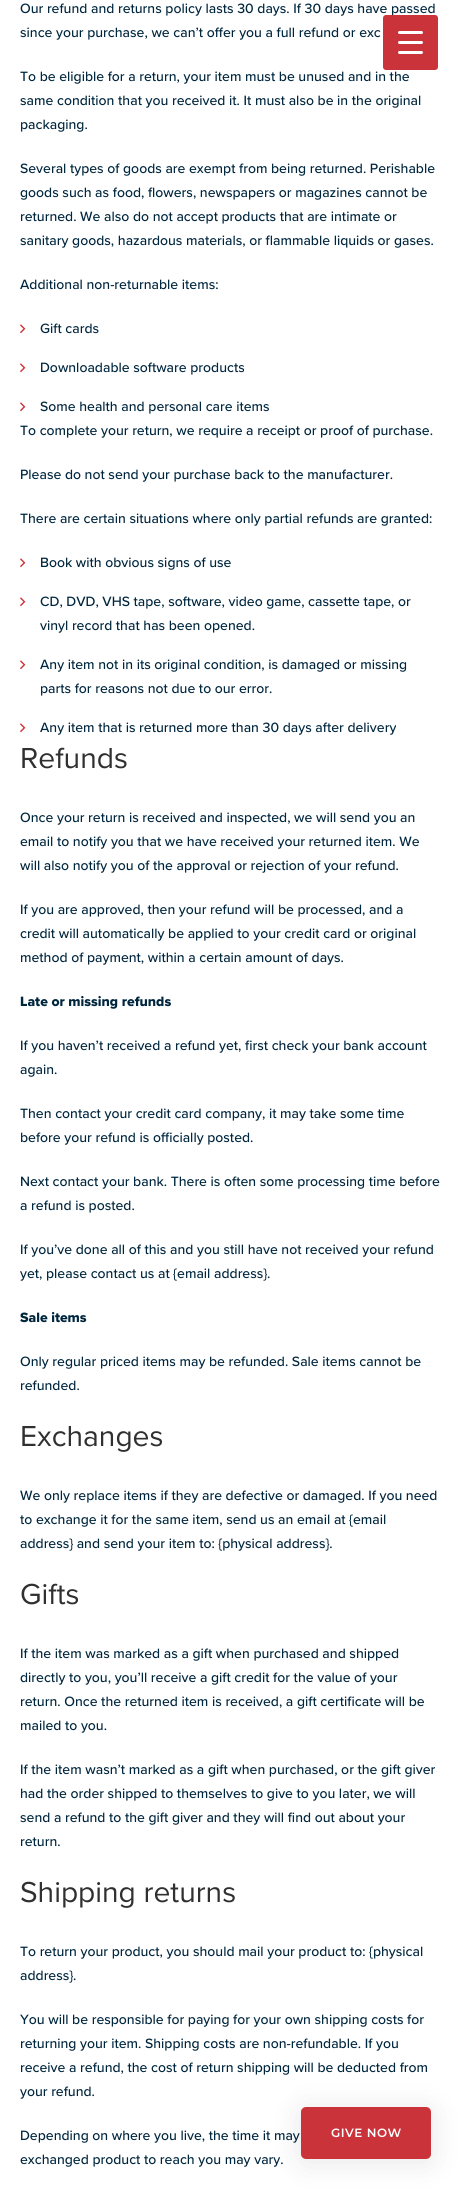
#include <cairo.h>
#include <math.h>
#include <stddef.h>

typedef struct { const char *family; double size; int italic, bold; unsigned color; } style_t;
static cairo_t *ctx;

static void ink(unsigned color) {
    cairo_set_source_rgb(ctx, (color >> 16) / 255.0, (color >> 8 & 255) / 255.0, (color & 255) / 255.0);
}

static void write(double x, double y, const char *s, const style_t *st) {
    cairo_select_font_face(ctx, st->family, st->italic ? CAIRO_FONT_SLANT_ITALIC : CAIRO_FONT_SLANT_NORMAL,
        st->bold ? CAIRO_FONT_WEIGHT_BOLD : CAIRO_FONT_WEIGHT_NORMAL);
    cairo_set_font_size(ctx, st->size);
    ink(st->color);
    cairo_move_to(ctx, x, y);
    cairo_show_text(ctx, s);
}

static void write_spaced(double x, double y, const char *s, double letter, double word) {
    cairo_move_to(ctx, x, y);
    while (*s) {
        char ch[5] = {0};
        int n = 0;
        do ch[n++] = *s++; while ((*s & 0xC0) == 0x80);
        cairo_show_text(ctx, ch);
        cairo_rel_move_to(ctx, letter + word * (*ch == ' '), 0);
    }
}

static void round_path(double x, double y, double w, double h, double r) {
    cairo_new_sub_path(ctx);
    cairo_arc(ctx, x + w - r, y + h - r, r, 0, M_PI / 2);
    cairo_arc(ctx, x + r, y + h - r, r, M_PI / 2, M_PI);
    cairo_arc(ctx, x + r, y + r, r, M_PI, 1.5 * M_PI);
    cairo_arc(ctx, x + w - r, y + r, r, 1.5 * M_PI, 2 * M_PI);
    cairo_close_path(ctx);
}

static void blur_box(double x, double y, double w, double h, double r, double blur, double alpha) {
    cairo_push_group_with_content(ctx, CAIRO_CONTENT_ALPHA);
    cairo_set_operator(ctx, CAIRO_OPERATOR_SOURCE);
    for (int i = 15; i >= -15 && fmin(w, h) + blur * i / 3 > 0; i -= 2) {
        double e = blur * i / 6;
        cairo_set_source_rgba(ctx, 0, 0, 0, alpha * erfc((i - 1) / 8.5) / 2);
        round_path(x - e, y - e, w + 2 * e, h + 2 * e, fmax(0, fmin(r + e + blur * .6, fmin(w, h) / 2 + e)));
        cairo_fill(ctx);
    }
    cairo_pattern_t *soft = cairo_pop_group(ctx);
    cairo_mask(ctx, soft);
    cairo_pattern_destroy(soft);
}

static void paste(const char *path, double x, double y, double w, double h) {
    cairo_surface_t *image = cairo_image_surface_create_from_png(path);
    cairo_save(ctx);
    cairo_set_source_surface(ctx, image, x, y);
    cairo_rectangle(ctx, x, y, w, h);
    cairo_fill(ctx);
    cairo_restore(ctx);
    cairo_surface_destroy(image);
}

static const style_t s1 = {"Proxima Nova Medium", 14, 0, 0, 0x00263e};
static const style_t s2 = {"Proxima Nova", 30, 0, 0, 0x303030};
static const style_t s3 = {"Proxima Nova ExtraBold", 14, 0, 0, 0x00263e};

int main(void) {
    cairo_surface_t *surface = cairo_image_surface_create(CAIRO_FORMAT_RGB24, 461, 2189);
    ctx = cairo_create(surface);
    cairo_font_options_t *options = cairo_font_options_create();
    cairo_font_options_set_hint_metrics(options, CAIRO_HINT_METRICS_OFF);
    cairo_font_options_set_hint_style(options, CAIRO_HINT_STYLE_NONE);
    cairo_set_font_options(ctx, options);
    cairo_set_miter_limit(ctx, 4);
    ink(0xffffff);
    cairo_paint(ctx);
    write(20, 13, "Our refund and returns policy lasts 30 days. If 30 days have passed", &s1);
    write(20, 37, "since your purchase, we can’t offer you a full refund or exc", &s1);
    write(20, 81, "To be eligible for a return, your item must be unused and in the", &s1);
    write(20, 105, "same condition that you received it. It must also be in the original", &s1);
    write(20, 129, "packaging.", &s1);
    write(20, 173, "Several types of goods are exempt from being returned. Perishable", &s1);
    write(20, 197, "goods such as food, flowers, newspapers or magazines cannot be", &s1);
    write(20, 221, "returned. We also do not accept products that are intimate or", &s1);
    write(20, 245, "sanitary goods, hazardous materials, or flammable liquids or gases.", &s1);
    write(20, 289, "Additional non-returnable items:", &s1);
    paste("pic1.png", 20, 324, 6, 10);
    write(40, 333, "Gift cards", &s1);
    paste("pic1.png", 20, 363, 6, 10);
    write(40, 372, "Downloadable software products", &s1);
    paste("pic1.png", 20, 402, 6, 10);
    write(40, 411, "Some health and personal care items", &s1);
    write(20, 435, "To complete your return, we require a receipt or proof of purchase.", &s1);
    write(20, 479, "Please do not send your purchase back to the manufacturer.", &s1);
    write(20, 523, "There are certain situations where only partial refunds are granted:", &s1);
    paste("pic1.png", 20, 558, 6, 10);
    write(40, 567, "Book with obvious signs of use", &s1);
    paste("pic1.png", 20, 597, 6, 10);
    write(40, 606, "CD, DVD, VHS tape, software, video game, cassette tape, or", &s1);
    write(40, 630, "vinyl record that has been opened.", &s1);
    paste("pic1.png", 20, 660, 6, 10);
    write(40, 669, "Any item not in its original condition, is damaged or missing", &s1);
    write(40, 693, "parts for reasons not due to our error.", &s1);
    paste("pic1.png", 20, 723, 6, 10);
    write(40, 732, "Any item that is returned more than 30 days after delivery", &s1);
    write(20, 768, "Refunds", &s2);
    write(20, 822, "Once your return is received and inspected, we will send you an", &s1);
    write(20, 846, "email to notify you that we have received your returned item. We", &s1);
    write(20, 870, "will also notify you of the approval or rejection of your refund.", &s1);
    write(20, 914, "If you are approved, then your refund will be processed, and a", &s1);
    write(20, 938, "credit will automatically be applied to your credit card or original", &s1);
    write(20, 962, "method of payment, within a certain amount of days.", &s1);
    write(20, 1006, "Late or missing refunds", &s3);
    write(20, 1050, "If you haven’t received a refund yet, first check your bank account", &s1);
    write(20, 1074, "again.", &s1);
    write(20, 1118, "Then contact your credit card company, it may take some time", &s1);
    write(20, 1142, "before your refund is officially posted.", &s1);
    write(20, 1186, "Next contact your bank. There is often some processing time before", &s1);
    write(20, 1210, "a refund is posted.", &s1);
    write(20, 1254, "If you’ve done all of this and you still have not received your refund", &s1);
    write(20, 1278, "yet, please contact us at {email address}.", &s1);
    write(20, 1322, "Sale items", &s3);
    write(20, 1366, "Only regular priced items may be refunded. Sale items cannot be", &s1);
    write(20, 1390, "refunded.", &s1);
    write(20, 1446, "Exchanges", &s2);
    write(20, 1500, "We only replace items if they are defective or damaged. If you need", &s1);
    write(20, 1524, "to exchange it for the same item, send us an email at {email", &s1);
    write(20, 1548, "address} and send your item to: {physical address}.", &s1);
    write(20, 1604, "Gifts", &s2);
    write(20, 1658, "If the item was marked as a gift when purchased and shipped", &s1);
    write(20, 1682, "directly to you, you’ll receive a gift credit for the value of your", &s1);
    write(20, 1706, "return. Once the returned item is received, a gift certificate will be", &s1);
    write(20, 1730, "mailed to you.", &s1);
    write(20, 1774, "If the item wasn’t marked as a gift when purchased, or the gift giver", &s1);
    write(20, 1798, "had the order shipped to themselves to give to you later, we will", &s1);
    write(20, 1822, "send a refund to the gift giver and they will find out about your", &s1);
    write(20, 1846, "return.", &s1);
    write(20, 1902, "Shipping returns", &s2);
    write(20, 1956, "To return your product, you should mail your product to: {physical", &s1);
    write(20, 1980, "address}.", &s1);
    write(20, 2024, "You will be responsible for paying for your own shipping costs for", &s1);
    write(20, 2048, "returning your item. Shipping costs are non-refundable. If you", &s1);
    write(20, 2072, "receive a refund, the cost of return shipping will be deducted from", &s1);
    write(20, 2096, "your refund.", &s1);
    write(20, 2140, "Depending on where you live, the time it may", &s1);
    write(20, 2164, "exchanged product to reach you may vary.", &s1);
    ink(0xcb333b);
    round_path(383, 15, 55, 55, 3);
    cairo_fill(ctx);
    ink(0xffffff);
    round_path(398, 41, 25, 3, 1.5);
    cairo_fill(ctx);
    round_path(398, 31, 25, 3, 1.5);
    cairo_fill(ctx);
    round_path(398, 51, 25, 3, 1.5);
    cairo_fill(ctx);
    ink(0x000000);
    blur_box(301, 2110, 130, 52, 5, 15, 0.1);
    ink(0xcb333b);
    round_path(301, 2107, 130, 52, 5);
    cairo_fill(ctx);
    cairo_select_font_face(ctx, "Montserrat SemiBold", CAIRO_FONT_SLANT_NORMAL, CAIRO_FONT_WEIGHT_NORMAL);
    cairo_set_font_size(ctx, 12);
    ink(0xffffff);
    write_spaced(331, 2137, "GIVE NOW", 0.5, 0);
    cairo_surface_write_to_png(surface, "screenshot.png");
    cairo_font_options_destroy(options);
    cairo_destroy(ctx);
    cairo_surface_destroy(surface);
    return 0;
}
